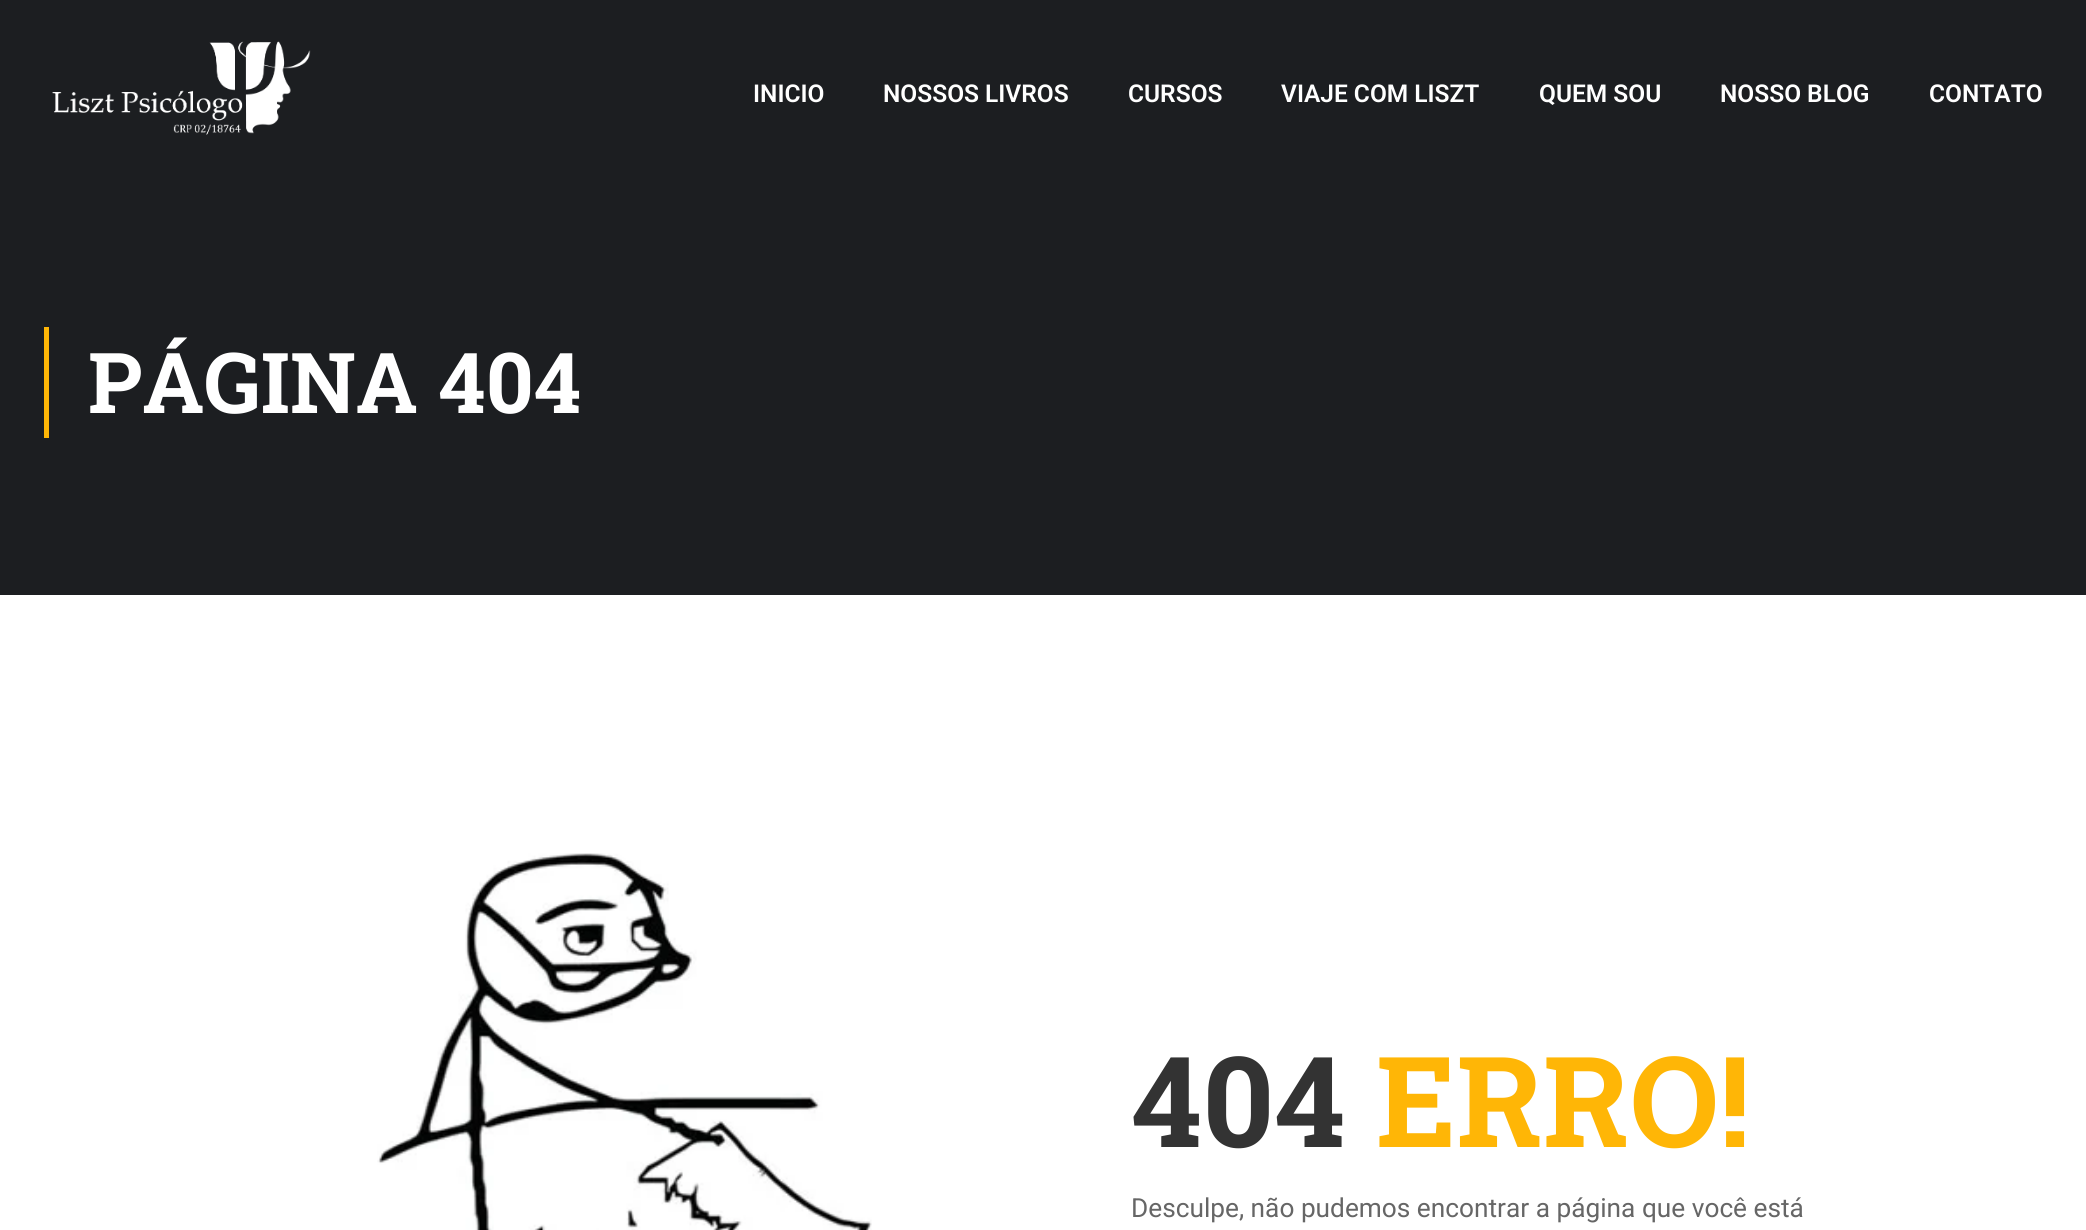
#include <cairo.h>
#include <math.h>
#include <stddef.h>

typedef struct { const char *family; double size; int italic, bold; unsigned color; } style_t;
static cairo_t *ctx;

static void ink(unsigned color) {
    cairo_set_source_rgb(ctx, (color >> 16) / 255.0, (color >> 8 & 255) / 255.0, (color & 255) / 255.0);
}

static void write(double x, double y, const char *s, const style_t *st) {
    cairo_select_font_face(ctx, st->family, st->italic ? CAIRO_FONT_SLANT_ITALIC : CAIRO_FONT_SLANT_NORMAL,
        st->bold ? CAIRO_FONT_WEIGHT_BOLD : CAIRO_FONT_WEIGHT_NORMAL);
    cairo_set_font_size(ctx, st->size);
    ink(st->color);
    cairo_move_to(ctx, x, y);
    cairo_show_text(ctx, s);
}

static void block(double x, double y, double w, double h, unsigned color) {
    ink(color);
    cairo_rectangle(ctx, x, y, w, h);
    cairo_fill(ctx);
}

static void paste(const char *path, double x, double y, double w, double h) {
    cairo_surface_t *image = cairo_image_surface_create_from_png(path);
    cairo_save(ctx);
    cairo_set_source_surface(ctx, image, x, y);
    cairo_rectangle(ctx, x, y, w, h);
    cairo_fill(ctx);
    cairo_restore(ctx);
    cairo_surface_destroy(image);
}

static const style_t s1 = {"Roboto SemiBold", 24.5, 0, 0, 0xffffff};
static const style_t s2 = {"Roboto Slab", 84, 0, 1, 0xffffff};
static const style_t s3 = {"Roboto Slab", 126, 0, 1, 0x333333};
static const style_t s4 = {"Roboto Slab", 126, 0, 1, 0xffb606};
static const style_t s5 = {"Roboto", 26.25, 0, 0, 0x666666};

int main(void) {
    cairo_surface_t *surface = cairo_image_surface_create(CAIRO_FORMAT_RGB24, 2086, 1230);
    ctx = cairo_create(surface);
    cairo_font_options_t *options = cairo_font_options_create();
    cairo_font_options_set_hint_metrics(options, CAIRO_HINT_METRICS_OFF);
    cairo_font_options_set_hint_style(options, CAIRO_HINT_STYLE_NONE);
    cairo_set_font_options(ctx, options);
    cairo_set_miter_limit(ctx, 4);
    ink(0xffffff);
    cairo_paint(ctx);
    block(0, 0, 2086, 595, 0x1c1e21);
    paste("pic1.png", 52, 41, 259, 94);
    write(753, 102, "INICIO", &s1);
    write(883, 102, "NOSSOS LIVROS", &s1);
    write(1128, 102, "CURSOS", &s1);
    write(1281, 102, "VIAJE COM LISZT", &s1);
    write(1539, 102, "QUEM SOU", &s1);
    write(1720, 102, "NOSSO BLOG", &s1);
    write(1929, 102, "CONTATO", &s1);
    block(44, 327, 5, 111, 0xffb606);
    write(88, 413, "PÁGINA 404", &s2);
    paste("pic2.png", 377, 853, 495, 377);
    write(1131, 1147, "404", &s3);
    write(1376, 1147, "ERRO!", &s4);
    write(1131, 1217, "Desculpe, não pudemos encontrar a página que você está", &s5);
    cairo_surface_write_to_png(surface, "screenshot.png");
    cairo_font_options_destroy(options);
    cairo_destroy(ctx);
    cairo_surface_destroy(surface);
    return 0;
}
